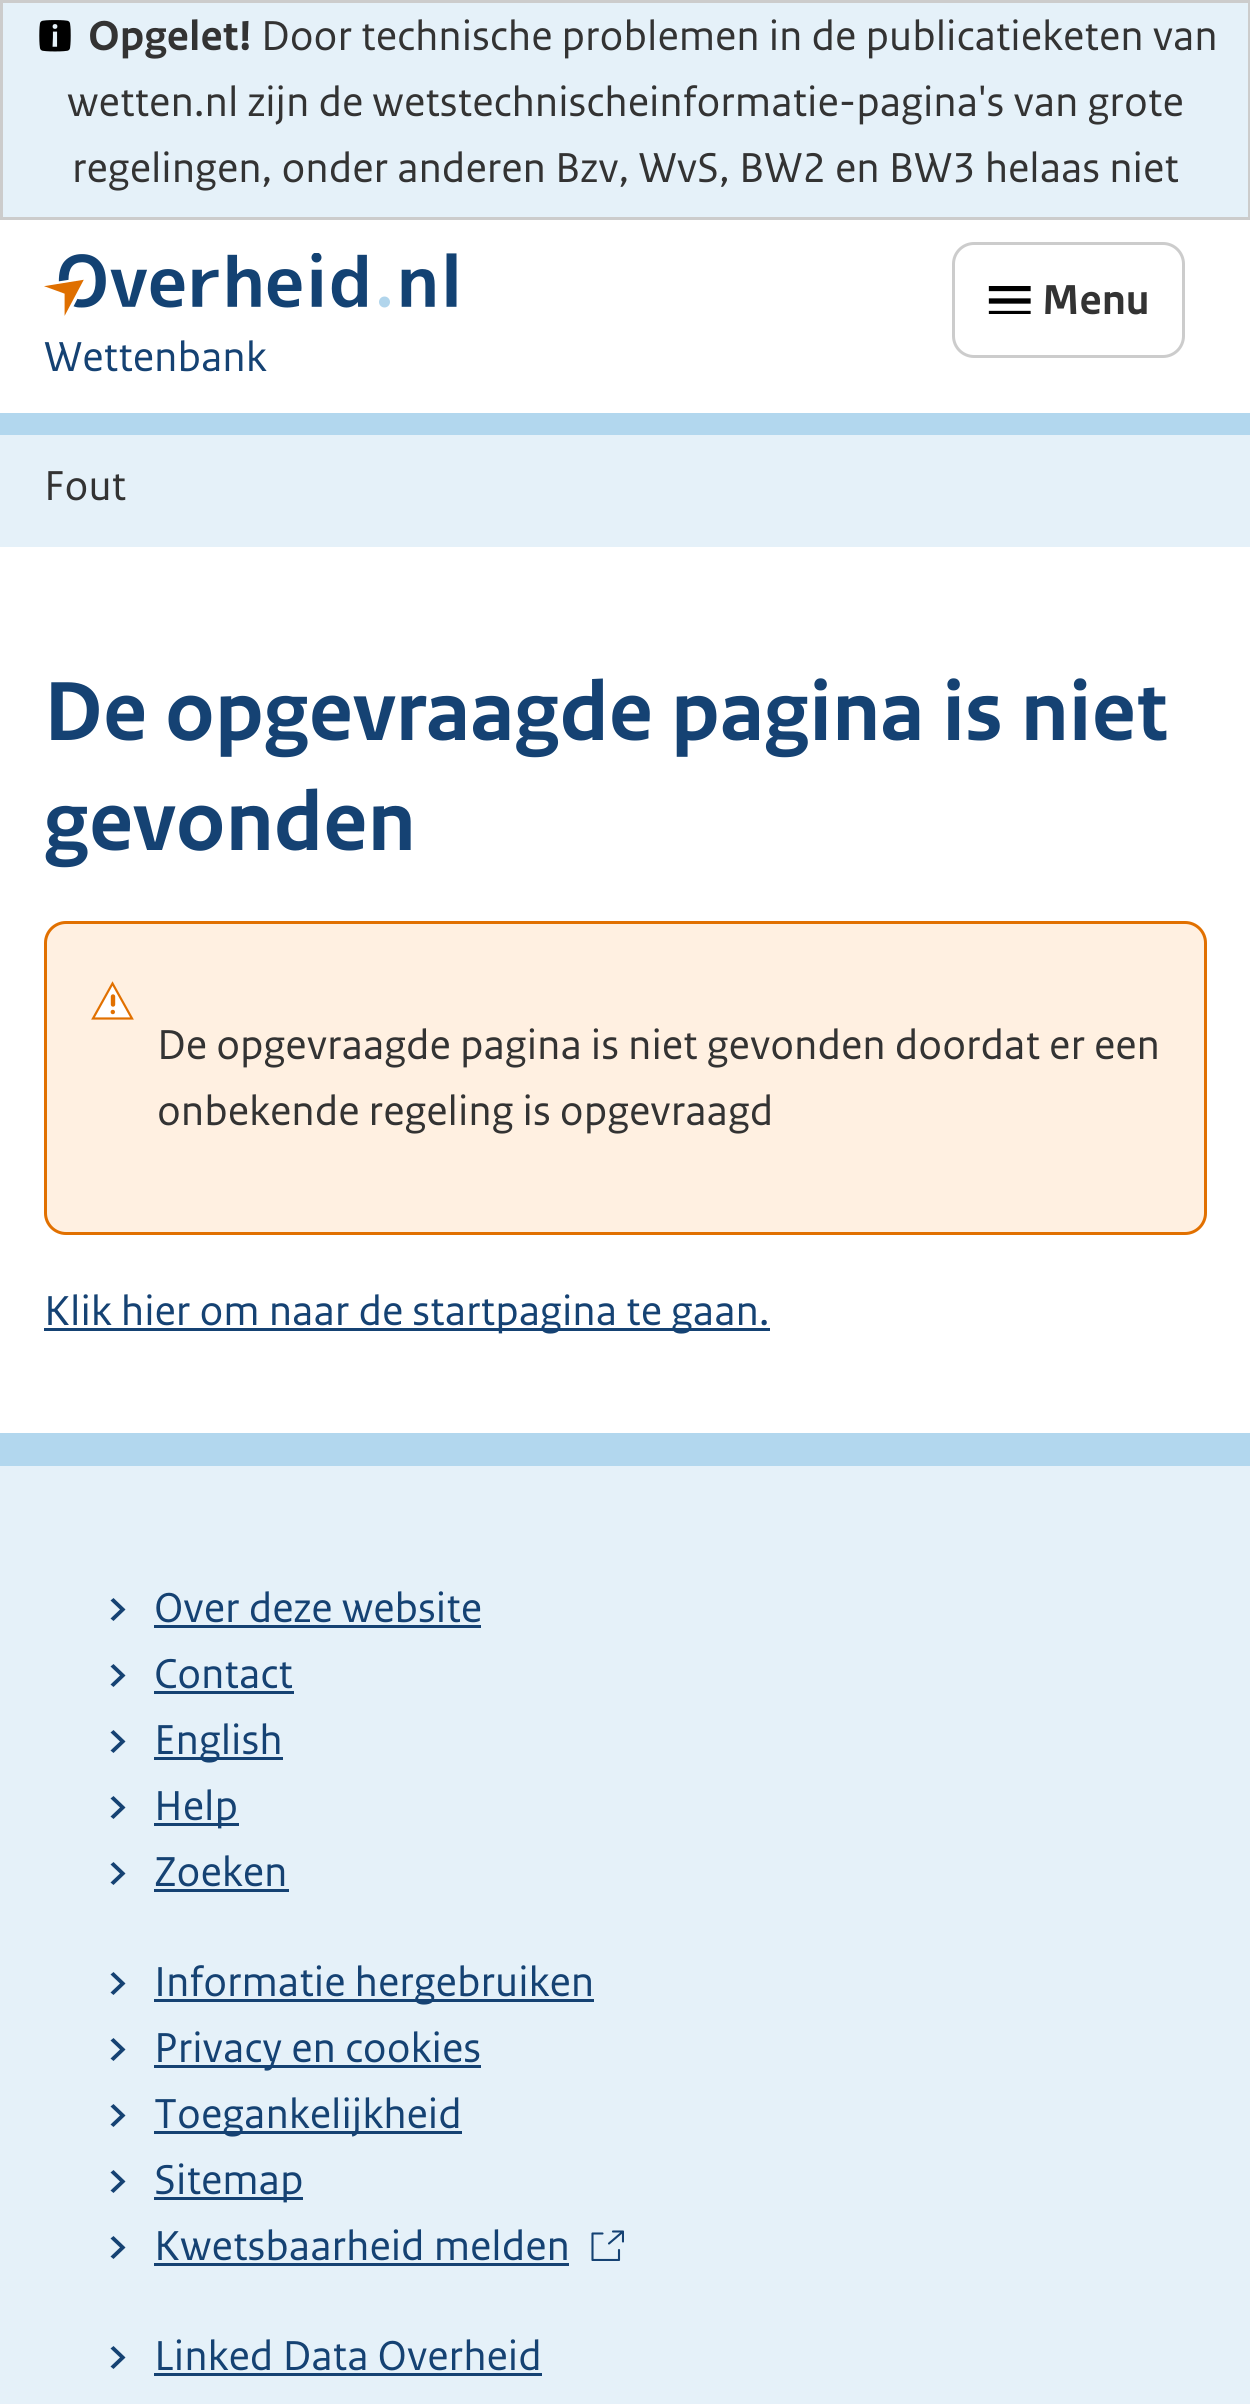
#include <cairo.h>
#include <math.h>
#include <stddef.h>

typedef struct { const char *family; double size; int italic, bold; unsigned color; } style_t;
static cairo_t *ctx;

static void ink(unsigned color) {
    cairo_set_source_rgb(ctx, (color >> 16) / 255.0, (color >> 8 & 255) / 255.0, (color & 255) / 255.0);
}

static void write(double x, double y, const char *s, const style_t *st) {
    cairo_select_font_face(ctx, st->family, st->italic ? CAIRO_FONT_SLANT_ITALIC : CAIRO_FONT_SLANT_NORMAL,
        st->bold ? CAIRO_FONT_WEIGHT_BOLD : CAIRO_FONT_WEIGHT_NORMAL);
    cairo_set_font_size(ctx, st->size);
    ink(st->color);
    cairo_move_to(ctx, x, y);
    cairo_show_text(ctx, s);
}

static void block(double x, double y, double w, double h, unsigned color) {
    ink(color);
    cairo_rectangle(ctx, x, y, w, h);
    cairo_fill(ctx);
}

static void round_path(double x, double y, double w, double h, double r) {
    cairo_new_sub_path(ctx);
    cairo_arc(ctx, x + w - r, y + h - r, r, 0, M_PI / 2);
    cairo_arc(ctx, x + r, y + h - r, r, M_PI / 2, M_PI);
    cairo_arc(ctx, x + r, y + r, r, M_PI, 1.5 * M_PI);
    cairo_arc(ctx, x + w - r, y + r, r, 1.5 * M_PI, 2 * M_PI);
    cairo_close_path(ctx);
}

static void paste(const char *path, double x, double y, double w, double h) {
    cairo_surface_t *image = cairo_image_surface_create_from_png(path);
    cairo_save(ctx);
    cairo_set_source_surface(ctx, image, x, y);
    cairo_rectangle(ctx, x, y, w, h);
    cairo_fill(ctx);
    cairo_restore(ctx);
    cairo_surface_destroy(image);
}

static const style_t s1 = {"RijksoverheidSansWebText", 44, 0, 1, 0x333333};
static const style_t s2 = {"RijksoverheidSansWebText", 44, 0, 0, 0x333333};
static const style_t s3 = {"RijksoverheidSansWebText", 44, 0, 0, 0x154273};
static const style_t s4 = {"RijksoverheidSansWebText", 88, 0, 1, 0x154273};

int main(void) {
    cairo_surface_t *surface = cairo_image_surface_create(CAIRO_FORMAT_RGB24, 1250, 2404);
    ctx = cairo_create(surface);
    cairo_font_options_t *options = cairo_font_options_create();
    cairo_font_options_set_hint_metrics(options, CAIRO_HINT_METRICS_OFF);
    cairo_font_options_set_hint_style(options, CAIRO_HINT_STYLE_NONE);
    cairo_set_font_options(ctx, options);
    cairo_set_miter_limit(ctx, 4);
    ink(0xffffff);
    cairo_paint(ctx);
    ink(0xe5f1f9);
    cairo_rectangle(ctx, 1.5, 1.5, 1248, 217);
    cairo_fill_preserve(ctx);
    ink(0xcccccc);
    cairo_set_line_width(ctx, 3);
    cairo_stroke(ctx);
    paste("pic1.png", 39, 20, 32, 32);
    write(88, 50, "Opgelet!", &s1);
    write(261, 50, "Door technische problemen in de publicatieketen van", &s2);
    write(67, 116, "wetten.nl zijn de wetstechnischeinformatie-pagina's van grote", &s2);
    write(72, 182, "regelingen, onder anderen Bzv, WvS, BW2 en BW3 helaas niet", &s2);
    block(0, 413, 1250, 22, 0xb2d7ee);
    cairo_save(ctx);
    cairo_rectangle(ctx, 987, 286, 44, 28);
    cairo_clip(ctx);
    cairo_new_path(ctx);
    cairo_move_to(ctx, 991.5, 288.5);
    cairo_line_to(ctx, 1028, 288.5);
    cairo_move_to(ctx, 991.5, 301);
    cairo_line_to(ctx, 1028, 301);
    cairo_move_to(ctx, 991.5, 313.5);
    cairo_line_to(ctx, 1028, 313.5);
    ink(0x000000);
    cairo_set_line_width(ctx, 5.3);
    cairo_set_line_cap(ctx, CAIRO_LINE_CAP_SQUARE);
    cairo_stroke(ctx);
    cairo_restore(ctx);
    round_path(953.5, 243.5, 230, 113, 20.5);
    ink(0xcccccc);
    cairo_stroke(ctx);
    write(1042, 314, "Menu", &s1);
    paste("pic2.png", 44, 253, 413, 63);
    write(44, 371, "Wettenbank", &s3);
    block(0, 435, 1250, 112, 0xe5f1f9);
    write(44, 500, "Fout", &s2);
    write(44, 740, "De opgevraagde pagina is niet", &s4);
    write(44, 850, "gevonden", &s4);
    ink(0xfff0e1);
    round_path(44, 921, 1163, 314, 22);
    cairo_fill(ctx);
    ink(0xffffff);
    cairo_new_path(ctx);
    cairo_move_to(ctx, 112.5, 983.5);
    cairo_line_to(ctx, 132, 1018.5);
    cairo_line_to(ctx, 93, 1018.5);
    cairo_close_path(ctx);
    cairo_fill_preserve(ctx);
    ink(0xe17000);
    cairo_set_line_width(ctx, 2.2);
    cairo_stroke(ctx);
    cairo_new_path(ctx);
    cairo_move_to(ctx, 113, 996.5);
    cairo_line_to(ctx, 113, 1004.5);
    cairo_set_line_width(ctx, 4.4);
    cairo_set_line_cap(ctx, CAIRO_LINE_CAP_ROUND);
    cairo_stroke(ctx);
    cairo_arc(ctx, 112.8, 1012, 2.2, 0, 2 * M_PI);
    cairo_fill(ctx);
    round_path(45.5, 922.5, 1160, 311, 20.5);
    cairo_set_line_width(ctx, 3);
    cairo_set_line_cap(ctx, CAIRO_LINE_CAP_BUTT);
    cairo_stroke(ctx);
    write(157, 1059, "De opgevraagde pagina is niet gevonden doordat er een", &s2);
    write(157, 1125, "onbekende regeling is opgevraagd", &s2);
    block(44, 1328, 726, 3, 0x154273);
    write(44, 1325, "Klik hier om naar de startpagina te gaan.", &s3);
    block(0, 1466, 1250, 938, 0xe5f1f9);
    block(0, 1433, 1250, 33, 0xb2d7ee);
    ink(0x154273);
    cairo_new_path(ctx);
    cairo_move_to(ctx, 113.5, 1598);
    cairo_line_to(ctx, 110.5, 1600.5);
    cairo_line_to(ctx, 120, 1609.5);
    cairo_line_to(ctx, 110.5, 1618.5);
    cairo_line_to(ctx, 113.5, 1621);
    cairo_line_to(ctx, 125.5, 1609.5);
    cairo_close_path(ctx);
    cairo_fill(ctx);
    write(154, 1622, "Over deze website", &s3);
    block(154, 1625, 327, 3, 0x154273);
    cairo_new_path(ctx);
    cairo_move_to(ctx, 113.5, 1664);
    cairo_line_to(ctx, 110.5, 1666.5);
    cairo_line_to(ctx, 120, 1675.5);
    cairo_line_to(ctx, 110.5, 1684.5);
    cairo_line_to(ctx, 113.5, 1687);
    cairo_line_to(ctx, 125.5, 1675.5);
    cairo_close_path(ctx);
    cairo_fill(ctx);
    write(154, 1688, "Contact", &s3);
    block(154, 1691, 140, 3, 0x154273);
    cairo_new_path(ctx);
    cairo_move_to(ctx, 113.5, 1730);
    cairo_line_to(ctx, 110.5, 1732.5);
    cairo_line_to(ctx, 120, 1741.5);
    cairo_line_to(ctx, 110.5, 1750.5);
    cairo_line_to(ctx, 113.5, 1753);
    cairo_line_to(ctx, 125.5, 1741.5);
    cairo_close_path(ctx);
    cairo_fill(ctx);
    block(154, 1757, 129, 3, 0x154273);
    write(154, 1754, "English", &s3);
    cairo_new_path(ctx);
    cairo_move_to(ctx, 113.5, 1796);
    cairo_line_to(ctx, 110.5, 1798.5);
    cairo_line_to(ctx, 120, 1807.5);
    cairo_line_to(ctx, 110.5, 1816.5);
    cairo_line_to(ctx, 113.5, 1819);
    cairo_line_to(ctx, 125.5, 1807.5);
    cairo_close_path(ctx);
    cairo_fill(ctx);
    block(154, 1823, 85, 3, 0x154273);
    write(154, 1820, "Help", &s3);
    cairo_new_path(ctx);
    cairo_move_to(ctx, 113.5, 1862);
    cairo_line_to(ctx, 110.5, 1864.5);
    cairo_line_to(ctx, 120, 1873.5);
    cairo_line_to(ctx, 110.5, 1882.5);
    cairo_line_to(ctx, 113.5, 1885);
    cairo_line_to(ctx, 125.5, 1873.5);
    cairo_close_path(ctx);
    cairo_fill(ctx);
    write(154, 1886, "Zoeken", &s3);
    block(154, 1889, 135, 3, 0x154273);
    cairo_new_path(ctx);
    cairo_move_to(ctx, 113.5, 1972);
    cairo_line_to(ctx, 110.5, 1974.5);
    cairo_line_to(ctx, 120, 1983.5);
    cairo_line_to(ctx, 110.5, 1992.5);
    cairo_line_to(ctx, 113.5, 1995);
    cairo_line_to(ctx, 125.5, 1983.5);
    cairo_close_path(ctx);
    cairo_fill(ctx);
    block(154, 1999, 440, 3, 0x154273);
    write(154, 1996, "Informatie hergebruiken", &s3);
    cairo_new_path(ctx);
    cairo_move_to(ctx, 113.5, 2038);
    cairo_line_to(ctx, 110.5, 2040.5);
    cairo_line_to(ctx, 120, 2049.5);
    cairo_line_to(ctx, 110.5, 2058.5);
    cairo_line_to(ctx, 113.5, 2061);
    cairo_line_to(ctx, 125.5, 2049.5);
    cairo_close_path(ctx);
    cairo_fill(ctx);
    block(154, 2065, 327, 3, 0x154273);
    write(154, 2062, "Privacy en cookies", &s3);
    cairo_new_path(ctx);
    cairo_move_to(ctx, 113.5, 2104);
    cairo_line_to(ctx, 110.5, 2106.5);
    cairo_line_to(ctx, 120, 2115.5);
    cairo_line_to(ctx, 110.5, 2124.5);
    cairo_line_to(ctx, 113.5, 2127);
    cairo_line_to(ctx, 125.5, 2115.5);
    cairo_close_path(ctx);
    cairo_fill(ctx);
    block(154, 2131, 308, 3, 0x154273);
    write(154, 2128, "Toegankelijkheid", &s3);
    cairo_new_path(ctx);
    cairo_move_to(ctx, 113.5, 2170);
    cairo_line_to(ctx, 110.5, 2172.5);
    cairo_line_to(ctx, 120, 2181.5);
    cairo_line_to(ctx, 110.5, 2190.5);
    cairo_line_to(ctx, 113.5, 2193);
    cairo_line_to(ctx, 125.5, 2181.5);
    cairo_close_path(ctx);
    cairo_fill(ctx);
    block(154, 2197, 149, 3, 0x154273);
    write(154, 2194, "Sitemap", &s3);
    cairo_new_path(ctx);
    cairo_move_to(ctx, 113.5, 2236);
    cairo_line_to(ctx, 110.5, 2238.5);
    cairo_line_to(ctx, 120, 2247.5);
    cairo_line_to(ctx, 110.5, 2256.5);
    cairo_line_to(ctx, 113.5, 2259);
    cairo_line_to(ctx, 125.5, 2247.5);
    cairo_close_path(ctx);
    cairo_fill(ctx);
    write(154, 2260, "Kwetsbaarheid melden", &s3);
    block(154, 2263, 415, 3, 0x154273);
    cairo_save(ctx);
    cairo_rectangle(ctx, 591, 2230, 33, 31);
    cairo_clip(ctx);
    cairo_new_path(ctx);
    cairo_move_to(ctx, 619, 2260);
    cairo_line_to(ctx, 619, 2250);
    cairo_move_to(ctx, 613, 2231.5);
    cairo_line_to(ctx, 623, 2231.5);
    cairo_move_to(ctx, 623, 2231.5);
    cairo_line_to(ctx, 623, 2241.5);
    cairo_move_to(ctx, 623, 2231.5);
    cairo_line_to(ctx, 609, 2243.5);
    cairo_move_to(ctx, 602.5, 2233.5);
    cairo_line_to(ctx, 592.5, 2233.5);
    cairo_move_to(ctx, 592.5, 2233.5);
    cairo_line_to(ctx, 592.5, 2260);
    cairo_move_to(ctx, 592.5, 2260);
    cairo_line_to(ctx, 619, 2260);
    cairo_set_line_width(ctx, 2.1);
    cairo_set_line_cap(ctx, CAIRO_LINE_CAP_ROUND);
    cairo_stroke(ctx);
    cairo_restore(ctx);
    cairo_new_path(ctx);
    cairo_move_to(ctx, 113.5, 2346);
    cairo_line_to(ctx, 110.5, 2348.5);
    cairo_line_to(ctx, 120, 2357.5);
    cairo_line_to(ctx, 110.5, 2366.5);
    cairo_line_to(ctx, 113.5, 2369);
    cairo_line_to(ctx, 125.5, 2357.5);
    cairo_close_path(ctx);
    cairo_fill(ctx);
    write(154, 2370, "Linked Data Overheid", &s3);
    block(154, 2373, 388, 3, 0x154273);
    cairo_surface_write_to_png(surface, "screenshot.png");
    cairo_font_options_destroy(options);
    cairo_destroy(ctx);
    cairo_surface_destroy(surface);
    return 0;
}
